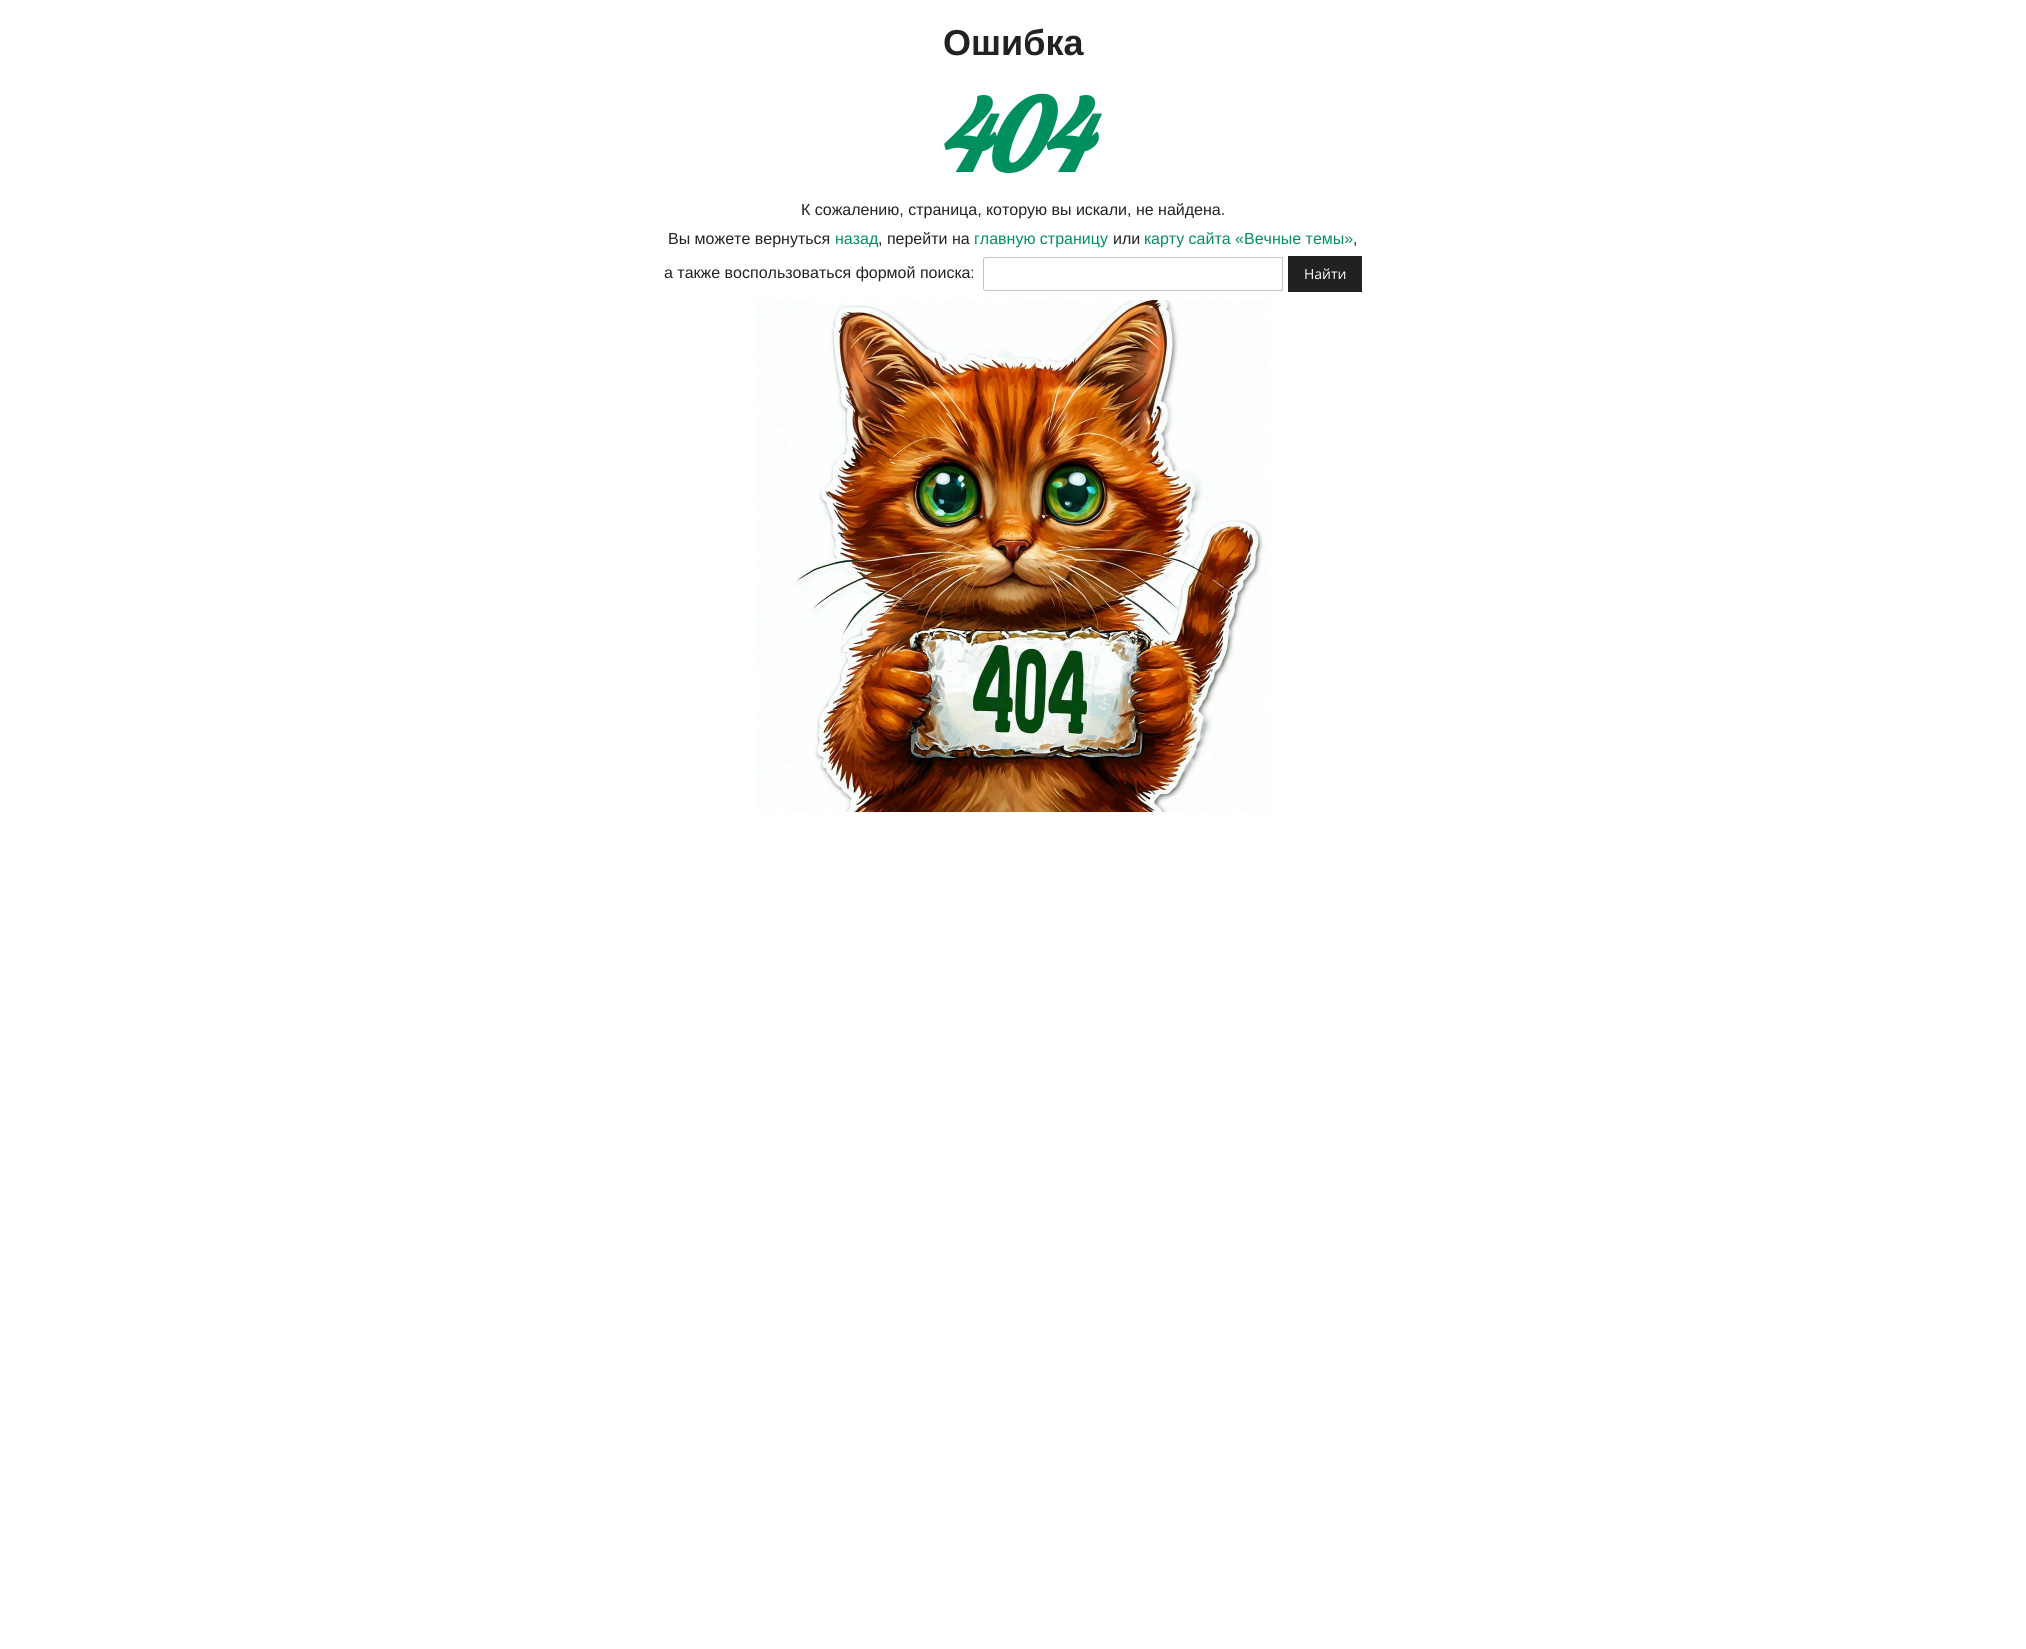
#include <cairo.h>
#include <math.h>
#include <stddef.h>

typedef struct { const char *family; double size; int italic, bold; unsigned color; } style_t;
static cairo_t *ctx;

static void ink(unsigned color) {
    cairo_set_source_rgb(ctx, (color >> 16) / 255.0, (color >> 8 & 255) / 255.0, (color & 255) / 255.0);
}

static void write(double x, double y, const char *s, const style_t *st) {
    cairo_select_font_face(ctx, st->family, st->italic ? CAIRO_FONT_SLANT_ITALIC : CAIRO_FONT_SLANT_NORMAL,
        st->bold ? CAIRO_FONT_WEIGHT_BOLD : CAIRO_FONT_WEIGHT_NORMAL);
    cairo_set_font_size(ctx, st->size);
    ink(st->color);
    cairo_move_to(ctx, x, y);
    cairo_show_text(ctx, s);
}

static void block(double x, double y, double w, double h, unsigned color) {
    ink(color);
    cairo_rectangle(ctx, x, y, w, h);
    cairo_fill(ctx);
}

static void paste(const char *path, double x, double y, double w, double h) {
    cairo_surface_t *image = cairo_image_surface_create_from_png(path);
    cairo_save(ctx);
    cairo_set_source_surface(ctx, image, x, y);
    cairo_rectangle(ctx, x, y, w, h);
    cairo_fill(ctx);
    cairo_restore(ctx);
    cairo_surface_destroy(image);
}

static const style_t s1 = {"Liberation Sans", 36, 0, 1, 0x222222};
static const style_t s2 = {"Lobster", 100, 1, 1, 0x009060};
static const style_t s3 = {"Liberation Sans", 16, 0, 0, 0x222222};
static const style_t s4 = {"Liberation Sans", 16, 0, 0, 0x009060};
static const style_t s5 = {"Open Sans", 14, 0, 0, 0xffffff};

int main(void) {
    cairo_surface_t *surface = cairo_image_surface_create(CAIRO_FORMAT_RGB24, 2026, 1649);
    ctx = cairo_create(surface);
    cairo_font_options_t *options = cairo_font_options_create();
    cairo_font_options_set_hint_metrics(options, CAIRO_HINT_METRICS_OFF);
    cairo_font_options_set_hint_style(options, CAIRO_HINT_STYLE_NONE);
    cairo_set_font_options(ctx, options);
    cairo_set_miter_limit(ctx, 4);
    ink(0xffffff);
    cairo_paint(ctx);
    write(943, 55, "Ошибка", &s1);
    write(938, 172, "404", &s2);
    write(801, 215, "К сожалению, страница, которую вы искали, не найдена.", &s3);
    write(668, 244, "Вы можете вернуться", &s3);
    write(835, 244, "назад", &s4);
    write(878, 244, ", перейти на", &s3);
    write(974, 244, "главную страницу", &s4);
    write(1113, 244, "или", &s3);
    write(1144, 244, "карту сайта «Вечные темы»", &s4);
    write(1353, 244, ",", &s3);
    write(664, 278, "а также воспользоваться формой поиска:", &s3);
    cairo_new_path(ctx);
    cairo_move_to(ctx, 986, 257.5);
    cairo_line_to(ctx, 1282.5, 257.5);
    cairo_line_to(ctx, 1282.5, 290.5);
    cairo_line_to(ctx, 986, 290.5);
    cairo_curve_to(ctx, 984.5, 290.5, 983.5, 289.5, 983.5, 288);
    cairo_line_to(ctx, 983.5, 260);
    cairo_curve_to(ctx, 983.5, 258.5, 984.5, 257.5, 986, 257.5);
    cairo_close_path(ctx);
    ink(0xc4c4c4);
    cairo_set_line_width(ctx, 1);
    cairo_stroke(ctx);
    block(1288, 256, 74, 36, 0x212121);
    write(1304, 279, "Найти", &s5);
    paste("pic1.png", 757, 300, 512, 512);
    cairo_surface_write_to_png(surface, "screenshot.png");
    cairo_font_options_destroy(options);
    cairo_destroy(ctx);
    cairo_surface_destroy(surface);
    return 0;
}
